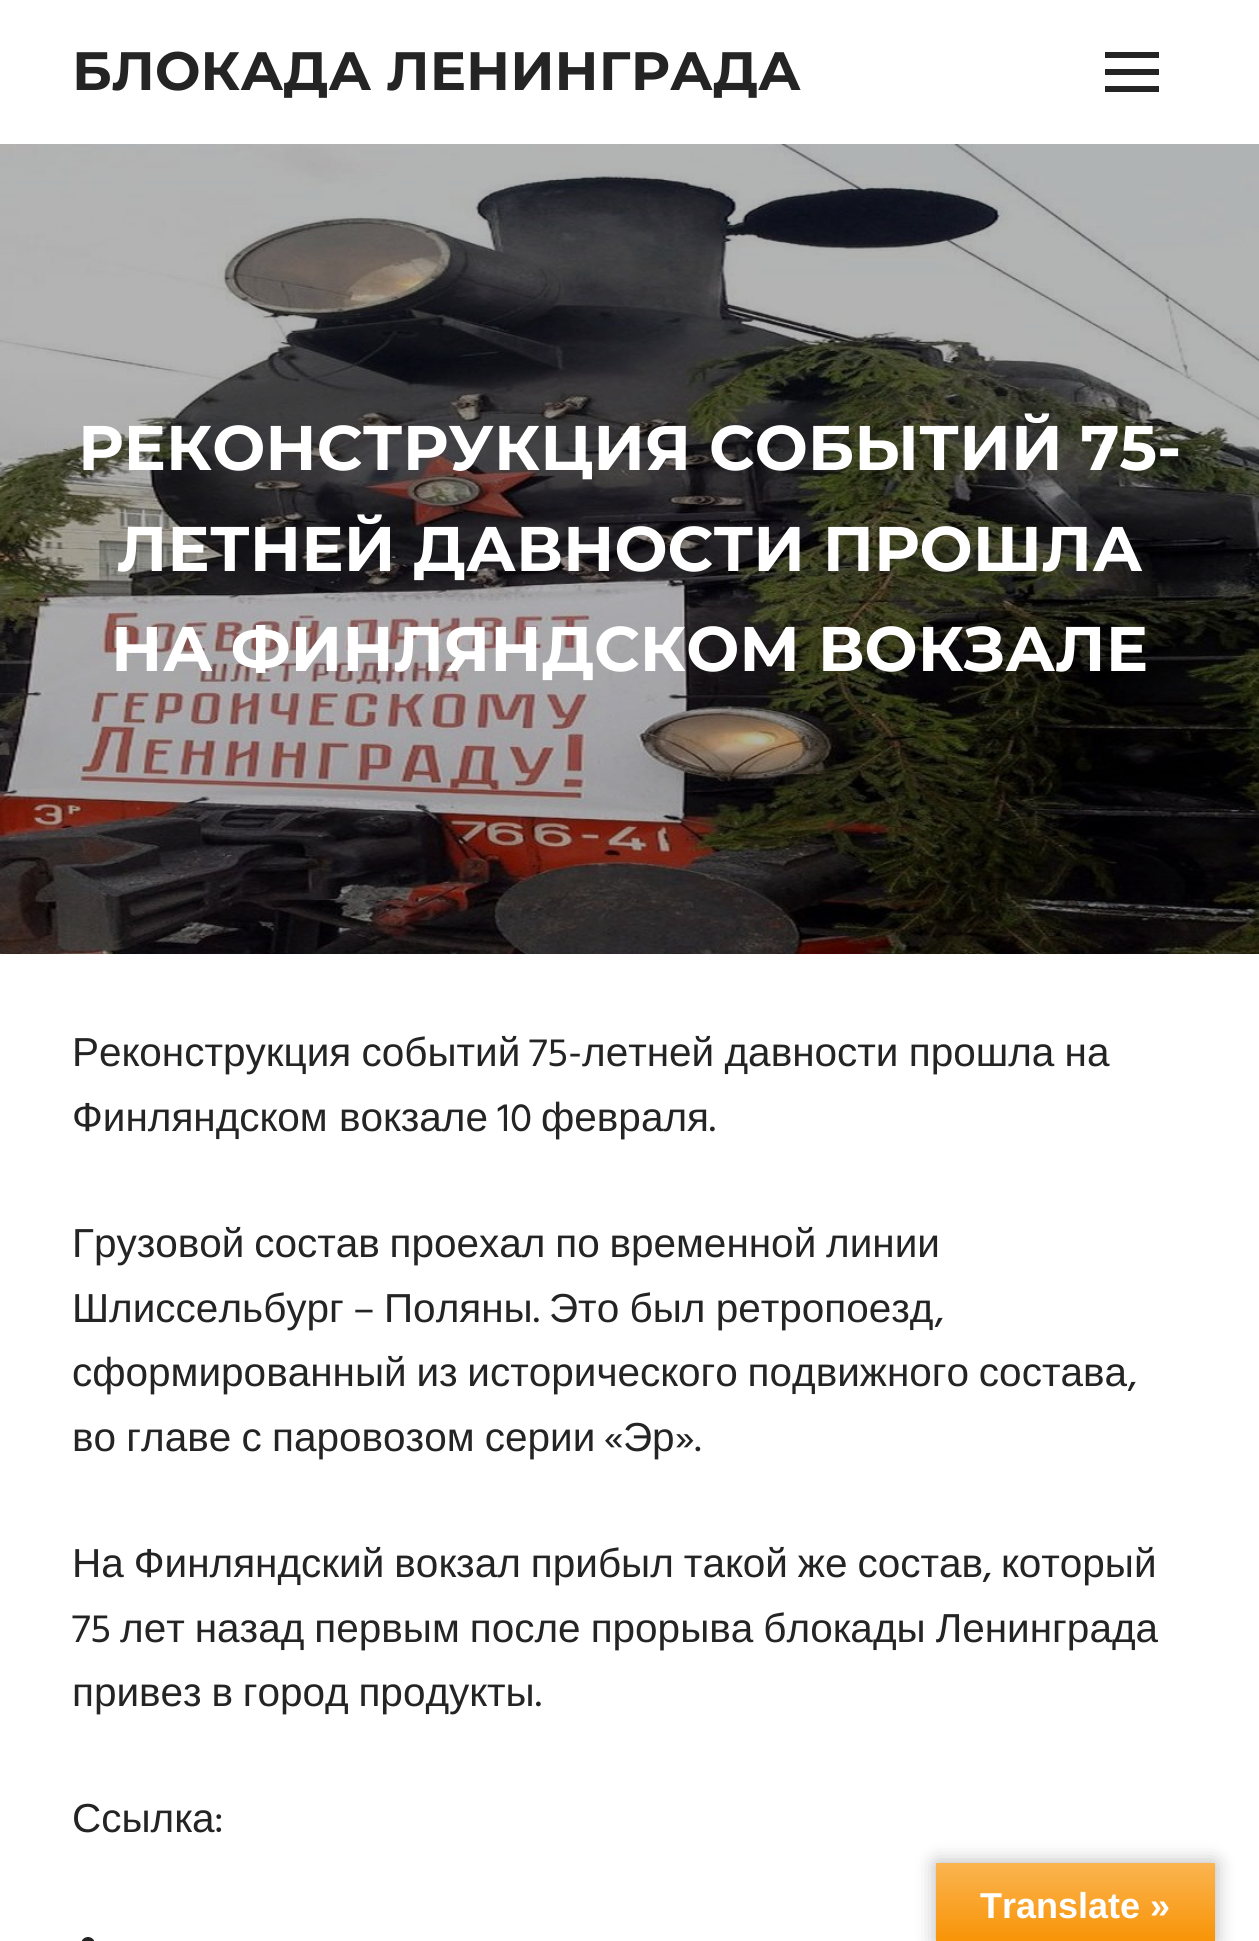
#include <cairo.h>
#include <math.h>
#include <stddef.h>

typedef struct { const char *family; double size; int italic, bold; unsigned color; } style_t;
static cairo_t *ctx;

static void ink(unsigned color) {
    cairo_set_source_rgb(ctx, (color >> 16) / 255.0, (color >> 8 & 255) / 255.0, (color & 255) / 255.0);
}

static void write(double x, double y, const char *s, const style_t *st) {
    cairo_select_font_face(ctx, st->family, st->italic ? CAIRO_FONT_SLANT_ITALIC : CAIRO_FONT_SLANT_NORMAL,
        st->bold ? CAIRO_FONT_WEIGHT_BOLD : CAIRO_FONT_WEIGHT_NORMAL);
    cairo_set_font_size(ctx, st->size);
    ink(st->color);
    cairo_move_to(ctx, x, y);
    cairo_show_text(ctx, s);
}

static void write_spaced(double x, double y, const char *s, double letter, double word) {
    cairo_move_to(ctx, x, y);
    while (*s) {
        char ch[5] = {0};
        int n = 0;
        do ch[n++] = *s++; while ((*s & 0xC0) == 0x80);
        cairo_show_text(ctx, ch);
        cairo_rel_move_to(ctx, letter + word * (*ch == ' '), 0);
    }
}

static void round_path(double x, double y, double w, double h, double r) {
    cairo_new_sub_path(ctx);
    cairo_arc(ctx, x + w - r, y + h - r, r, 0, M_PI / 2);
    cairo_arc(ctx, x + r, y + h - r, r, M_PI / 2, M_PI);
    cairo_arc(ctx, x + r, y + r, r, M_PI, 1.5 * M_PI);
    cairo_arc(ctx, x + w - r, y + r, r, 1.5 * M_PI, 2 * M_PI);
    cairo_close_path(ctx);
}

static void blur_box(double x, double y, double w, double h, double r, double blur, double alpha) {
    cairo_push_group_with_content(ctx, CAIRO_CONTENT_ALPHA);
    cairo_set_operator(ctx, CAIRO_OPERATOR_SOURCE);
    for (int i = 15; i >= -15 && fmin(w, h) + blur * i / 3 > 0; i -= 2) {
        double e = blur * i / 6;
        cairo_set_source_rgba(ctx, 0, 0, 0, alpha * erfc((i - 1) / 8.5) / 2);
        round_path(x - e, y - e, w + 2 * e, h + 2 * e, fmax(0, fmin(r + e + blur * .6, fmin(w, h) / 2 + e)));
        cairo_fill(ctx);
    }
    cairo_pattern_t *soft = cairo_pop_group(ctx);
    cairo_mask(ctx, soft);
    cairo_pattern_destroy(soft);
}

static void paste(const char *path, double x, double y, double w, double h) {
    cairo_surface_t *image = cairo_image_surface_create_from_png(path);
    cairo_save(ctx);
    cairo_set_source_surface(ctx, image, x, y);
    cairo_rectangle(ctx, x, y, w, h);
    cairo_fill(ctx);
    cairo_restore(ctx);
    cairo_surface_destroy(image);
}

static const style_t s1 = {"Montserrat", 54, 0, 1, 0x242424};
static const style_t s2 = {"Montserrat", 63, 0, 1, 0xffffff};
static const style_t s3 = {"Hind", 40.5, 0, 0, 0x242424};
static const style_t s4 = {"Liberation Sans", 40.5, 0, 0, 0x242424};
static const style_t s5 = {"Liberation Sans", 36, 0, 1, 0xffffff};

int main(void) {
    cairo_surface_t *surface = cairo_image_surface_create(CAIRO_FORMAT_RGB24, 1259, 1941);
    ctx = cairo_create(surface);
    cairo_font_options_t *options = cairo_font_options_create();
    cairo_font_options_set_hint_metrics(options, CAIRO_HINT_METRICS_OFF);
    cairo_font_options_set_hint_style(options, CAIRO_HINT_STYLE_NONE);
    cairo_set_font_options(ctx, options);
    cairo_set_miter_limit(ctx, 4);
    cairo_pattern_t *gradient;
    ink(0xffffff);
    cairo_paint(ctx);
    write(72, 90, "БЛОКАДА ЛЕНИНГРАДА", &s1);
    cairo_new_path(ctx);
    cairo_move_to(ctx, 1105, 92);
    cairo_line_to(ctx, 1105, 86);
    cairo_line_to(ctx, 1159, 86);
    cairo_line_to(ctx, 1159, 92);
    cairo_close_path(ctx);
    cairo_move_to(ctx, 1105, 52);
    cairo_line_to(ctx, 1159, 52);
    cairo_line_to(ctx, 1159, 58);
    cairo_line_to(ctx, 1105, 58);
    cairo_close_path(ctx);
    cairo_move_to(ctx, 1105, 75);
    cairo_line_to(ctx, 1105, 69);
    cairo_line_to(ctx, 1159, 69);
    cairo_line_to(ctx, 1159, 75);
    cairo_close_path(ctx);
    cairo_fill(ctx);
    paste("pic1.png", 0, 144, 1259, 810);
    write(78, 470, "РЕКОНСТРУКЦИЯ СОБЫТИЙ 75-", &s2);
    write(117, 571, "ЛЕТНЕЙ ДАВНОСТИ ПРОШЛА", &s2);
    write(111, 671, "НА ФИНЛЯНДСКОМ ВОКЗАЛЕ", &s2);
    cairo_select_font_face(ctx, "Liberation Sans", CAIRO_FONT_SLANT_NORMAL, CAIRO_FONT_WEIGHT_NORMAL);
    cairo_set_font_size(ctx, 40.5);
    ink(0x242424);
    write_spaced(72, 1066, "Реконструкция событий", 0, -1);
    write(529, 1066, "75-", &s3);
    cairo_select_font_face(ctx, "Liberation Sans", CAIRO_FONT_SLANT_NORMAL, CAIRO_FONT_WEIGHT_NORMAL);
    write_spaced(582, 1066, "летней давности прошла на", 0, -1);
    write(72, 1131, "Финляндском вокзале", &s4);
    write(497, 1131, "10", &s3);
    write(541, 1131, "февраля", &s4);
    write(709, 1131, ".", &s3);
    cairo_select_font_face(ctx, "Liberation Sans", CAIRO_FONT_SLANT_NORMAL, CAIRO_FONT_WEIGHT_NORMAL);
    write_spaced(72, 1257, "Грузовой состав проехал по временной линии", 0, -1.5);
    write(72, 1322, "Шлиссельбург", &s4);
    write(353, 1322, "–", &s3);
    write(384, 1322, "Поляны", &s4);
    write_spaced(549, 1322, "Это был ретропоезд", 0, -1);
    write(533, 1322, ".", &s3);
    write(935, 1322, ",", &s3);
    cairo_select_font_face(ctx, "Liberation Sans", CAIRO_FONT_SLANT_NORMAL, CAIRO_FONT_WEIGHT_NORMAL);
    write_spaced(72, 1386, "сформированный из исторического подвижного состава", 0, -1.5);
    write(1128, 1386, ",", &s3);
    cairo_select_font_face(ctx, "Liberation Sans", CAIRO_FONT_SLANT_NORMAL, CAIRO_FONT_WEIGHT_NORMAL);
    write_spaced(72, 1451, "во главе с паровозом серии", 0, -1);
    write(604, 1451, "«", &s3);
    write(623, 1451, "Эр", &s4);
    write(675, 1451, "».", &s3);
    cairo_select_font_face(ctx, "Liberation Sans", CAIRO_FONT_SLANT_NORMAL, CAIRO_FONT_WEIGHT_NORMAL);
    write_spaced(72, 1577, "На Финляндский вокзал прибыл такой же состав", 0, -1.25);
    write(983, 1577, ",", &s3);
    write(1001, 1577, "который", &s4);
    write(72, 1642, "75", &s3);
    cairo_select_font_face(ctx, "Liberation Sans", CAIRO_FONT_SLANT_NORMAL, CAIRO_FONT_WEIGHT_NORMAL);
    write_spaced(120, 1642, "лет назад первым после прорыва блокады Ленинграда", 0, -1.25);
    write_spaced(72, 1706, "привез в город продукты", 0, -1.5);
    write(535, 1706, ".", &s3);
    write(72, 1832, "Ссылка", &s4);
    write(214, 1832, ":", &s3);
    ink(0x222222);
    round_path(81, 1937, 14, 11, 7);
    cairo_fill(ctx);
    ink(0x000000);
    blur_box(936, 1863, 279, 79, 0, 10, 0.3);
    gradient = cairo_pattern_create_linear(1076, 1863, 1076, 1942);
    cairo_pattern_add_color_stop_rgba(gradient, 0, 0.984, 0.706, 0.314, 1);
    cairo_pattern_add_color_stop_rgba(gradient, 1, 0.973, 0.58, 0.024, 1);
    cairo_set_source(ctx, gradient);
    cairo_pattern_destroy(gradient);
    cairo_rectangle(ctx, 936, 1863, 279, 78);
    cairo_fill(ctx);
    write(980, 1918, "Translate »", &s5);
    cairo_surface_write_to_png(surface, "screenshot.png");
    cairo_font_options_destroy(options);
    cairo_destroy(ctx);
    cairo_surface_destroy(surface);
    return 0;
}
